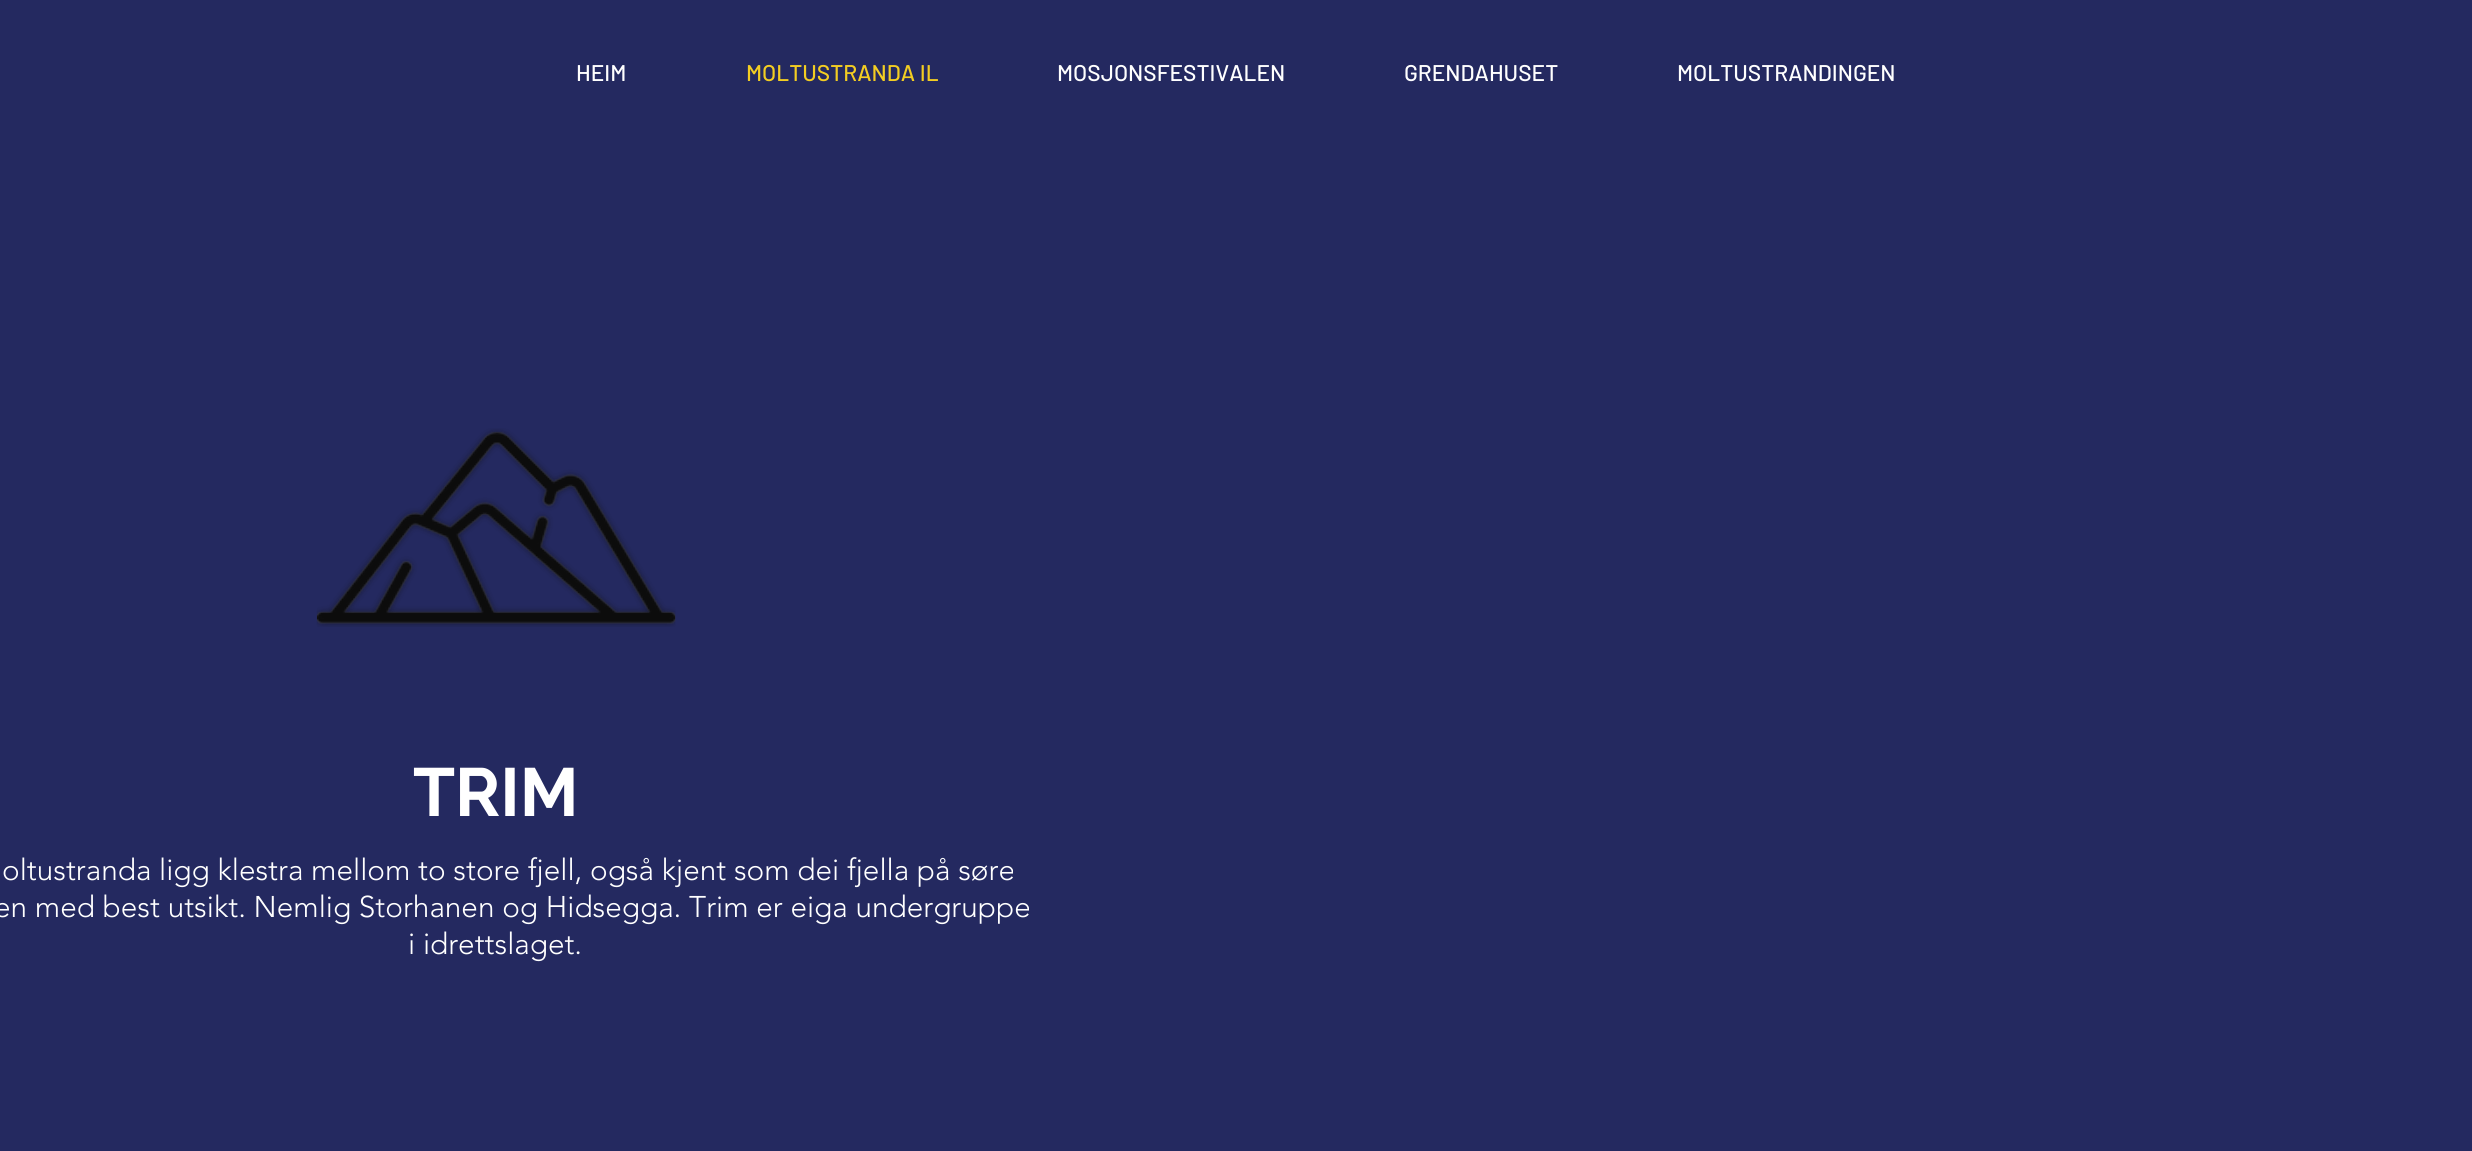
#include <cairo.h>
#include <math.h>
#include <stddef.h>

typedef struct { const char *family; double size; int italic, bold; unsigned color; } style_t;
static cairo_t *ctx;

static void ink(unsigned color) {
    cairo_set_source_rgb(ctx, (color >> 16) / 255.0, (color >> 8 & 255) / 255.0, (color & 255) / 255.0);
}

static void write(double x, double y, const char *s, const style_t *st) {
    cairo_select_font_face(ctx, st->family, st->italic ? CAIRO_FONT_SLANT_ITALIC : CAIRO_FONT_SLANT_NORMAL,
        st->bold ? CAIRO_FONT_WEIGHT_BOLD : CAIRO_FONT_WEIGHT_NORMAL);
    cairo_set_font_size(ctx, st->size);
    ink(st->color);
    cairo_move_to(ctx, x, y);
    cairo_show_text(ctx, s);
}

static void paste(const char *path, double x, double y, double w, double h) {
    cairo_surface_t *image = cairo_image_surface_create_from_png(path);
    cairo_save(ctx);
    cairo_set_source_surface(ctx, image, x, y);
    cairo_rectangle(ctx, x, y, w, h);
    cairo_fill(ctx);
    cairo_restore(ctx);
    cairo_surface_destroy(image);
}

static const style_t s1 = {"Barlow Medium", 22.75, 0, 0, 0xffffff};
static const style_t s2 = {"Barlow Medium", 22.75, 0, 0, 0xf3cd22};
static const style_t s3 = {"Raleway", 68, 0, 1, 0xffffff};
static const style_t s4 = {"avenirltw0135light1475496 Light", 29.75, 0, 0, 0xffffff};

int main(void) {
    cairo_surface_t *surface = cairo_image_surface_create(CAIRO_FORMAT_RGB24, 2472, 1151);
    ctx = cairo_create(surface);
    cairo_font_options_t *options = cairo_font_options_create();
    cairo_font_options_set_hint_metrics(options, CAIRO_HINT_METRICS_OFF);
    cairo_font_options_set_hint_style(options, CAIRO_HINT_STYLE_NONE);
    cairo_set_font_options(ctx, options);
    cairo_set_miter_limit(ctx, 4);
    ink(0x242960);
    cairo_paint(ctx);
    write(576, 81, "HEIM", &s1);
    write(746, 81, "MOLTUSTRANDA IL", &s2);
    write(1057, 81, "MOSJONSFESTIVALEN", &s1);
    write(1404, 81, "GRENDAHUSET", &s1);
    write(1677, 81, "MOLTUSTRANDINGEN", &s1);
    paste("pic1.png", 316, 428, 360, 199);
    write(413, 816, "TRIM", &s3);
    write(2, 880, "oltustranda ligg klestra mellom to store fjell, også kjent som dei fjella på søre", &s4);
    write(-6, 917, "en med best utsikt. Nemlig Storhanen og Hidsegga. Trim er eiga undergruppe", &s4);
    write(408, 954, "i idrettslaget.", &s4);
    cairo_surface_write_to_png(surface, "screenshot.png");
    cairo_font_options_destroy(options);
    cairo_destroy(ctx);
    cairo_surface_destroy(surface);
    return 0;
}
